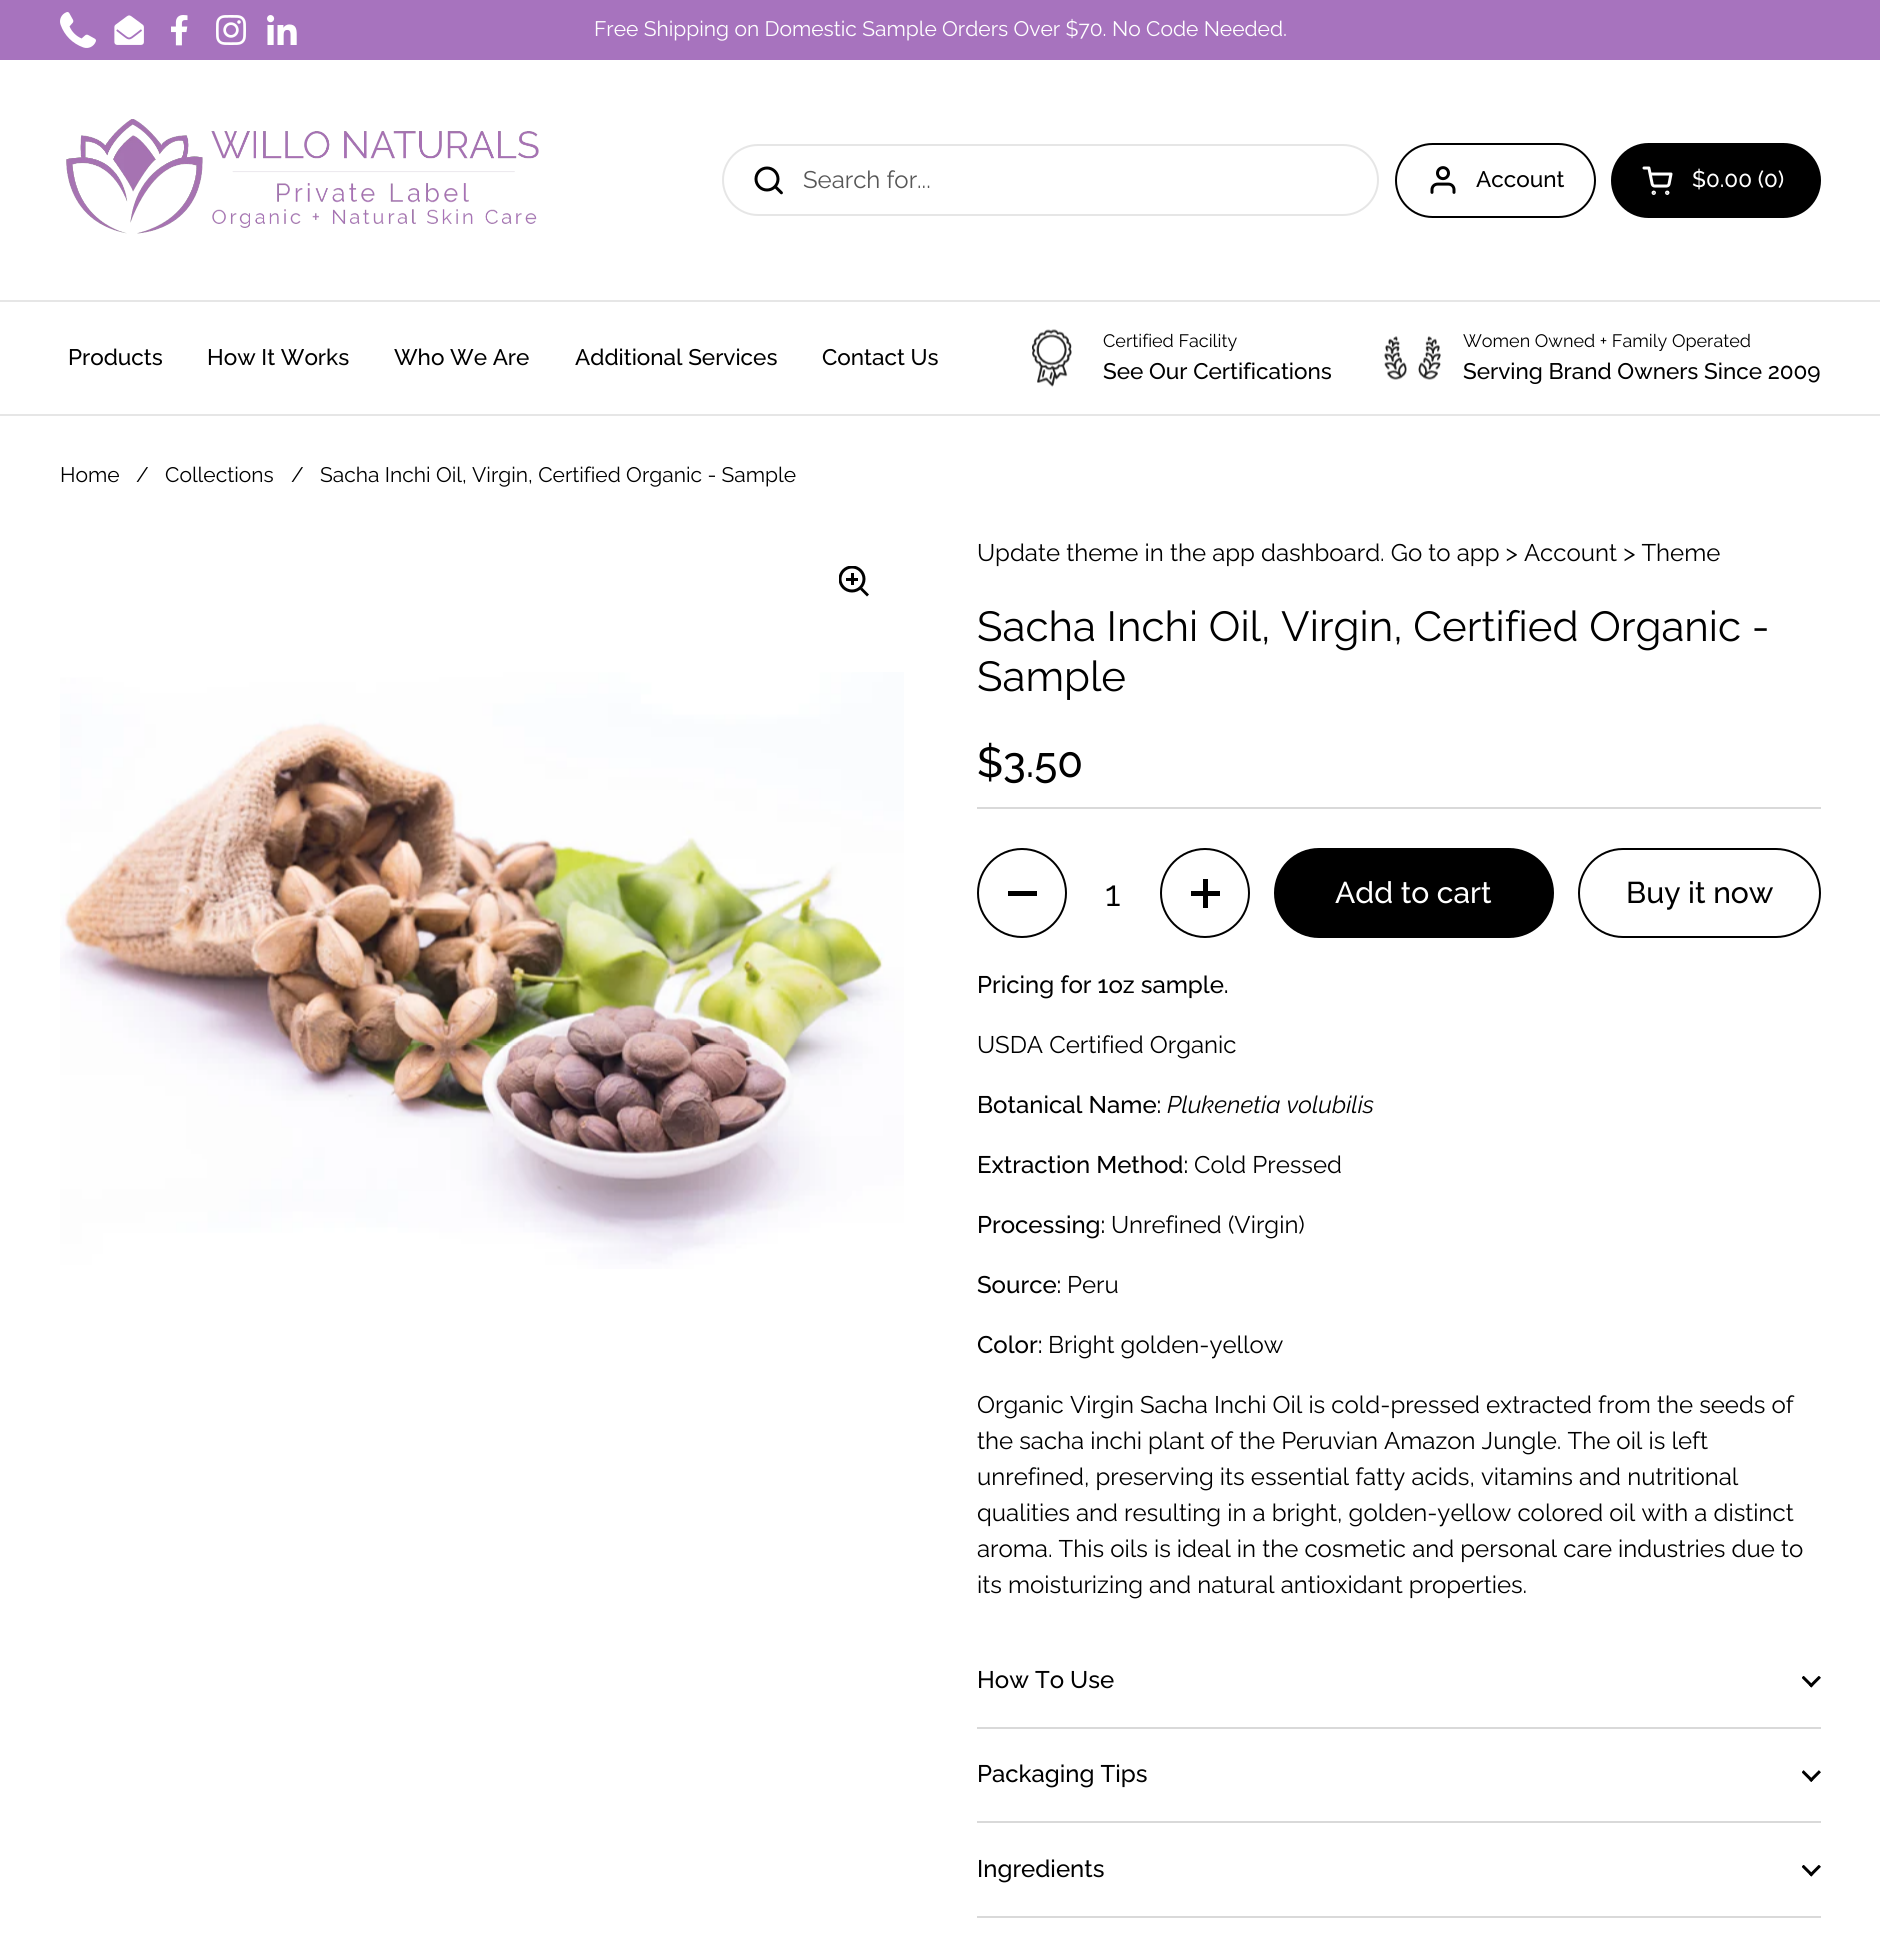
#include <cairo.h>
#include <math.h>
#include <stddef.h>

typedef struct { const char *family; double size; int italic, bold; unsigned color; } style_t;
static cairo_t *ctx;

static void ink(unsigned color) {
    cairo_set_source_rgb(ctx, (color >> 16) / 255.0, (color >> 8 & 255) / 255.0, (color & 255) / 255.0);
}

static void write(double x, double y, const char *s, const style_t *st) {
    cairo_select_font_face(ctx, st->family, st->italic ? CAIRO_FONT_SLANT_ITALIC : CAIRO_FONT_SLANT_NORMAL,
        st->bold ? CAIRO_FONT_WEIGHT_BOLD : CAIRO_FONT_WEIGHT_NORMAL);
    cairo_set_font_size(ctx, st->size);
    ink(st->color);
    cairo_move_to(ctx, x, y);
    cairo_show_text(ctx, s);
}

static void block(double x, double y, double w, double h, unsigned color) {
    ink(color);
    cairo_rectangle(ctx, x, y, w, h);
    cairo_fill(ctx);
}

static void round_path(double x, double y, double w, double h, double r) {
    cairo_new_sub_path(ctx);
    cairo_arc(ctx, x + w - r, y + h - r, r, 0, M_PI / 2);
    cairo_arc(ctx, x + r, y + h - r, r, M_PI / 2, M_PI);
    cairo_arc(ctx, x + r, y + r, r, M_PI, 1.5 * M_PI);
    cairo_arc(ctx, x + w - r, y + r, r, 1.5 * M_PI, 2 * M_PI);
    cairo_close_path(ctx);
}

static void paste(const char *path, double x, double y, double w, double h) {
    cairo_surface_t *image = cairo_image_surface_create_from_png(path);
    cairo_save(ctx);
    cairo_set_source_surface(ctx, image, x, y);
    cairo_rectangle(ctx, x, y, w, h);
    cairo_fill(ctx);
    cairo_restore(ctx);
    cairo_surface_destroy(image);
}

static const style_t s1 = {"Raleway", 21, 0, 0, 0xffffff};
static const style_t s2 = {"Raleway", 24, 0, 0, 0x575757};
static const style_t s3 = {"Raleway Medium", 22.5, 0, 0, 0x000000};
static const style_t s4 = {"Raleway Medium", 22.5, 0, 0, 0xffffff};
static const style_t s5 = {"Raleway", 18, 0, 0, 0x000000};
static const style_t s6 = {"Raleway", 21, 0, 0, 0x000000};
static const style_t s7 = {"Raleway", 24, 0, 0, 0x000000};
static const style_t s8 = {"Raleway", 42, 0, 0, 0x000000};
static const style_t s9 = {"Raleway Medium", 42, 0, 0, 0x000000};
static const style_t s10 = {"Raleway", 36, 0, 0, 0x000000};
static const style_t s11 = {"Raleway Medium", 30, 0, 0, 0xffffff};
static const style_t s12 = {"Raleway Medium", 30, 0, 0, 0x000000};
static const style_t s13 = {"Raleway Medium", 24, 0, 0, 0x000000};
static const style_t s14 = {"Raleway", 24, 1, 0, 0x000000};

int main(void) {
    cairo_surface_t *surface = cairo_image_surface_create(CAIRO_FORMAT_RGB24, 1880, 1955);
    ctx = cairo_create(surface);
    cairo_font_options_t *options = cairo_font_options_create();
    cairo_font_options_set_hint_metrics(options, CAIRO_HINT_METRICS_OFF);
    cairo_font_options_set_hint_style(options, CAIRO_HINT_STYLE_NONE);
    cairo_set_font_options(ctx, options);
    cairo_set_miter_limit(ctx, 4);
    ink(0xffffff);
    cairo_paint(ctx);
    block(0, 0, 1880, 60, 0xa773be);
    paste("pic1.png", 60, 12, 36, 36);
    paste("pic2.png", 114, 15, 30, 30);
    paste("pic3.png", 171, 15, 17, 31);
    paste("pic4.png", 216, 15, 30, 30);
    paste("pic5.png", 267, 15, 30, 30);
    write(594, 36, "Free Shipping on Domestic Sample Orders Over $70. No Code Needed.", &s1);
    block(0, 300, 1880, 2, 0xe6e6e6);
    paste("pic6.png", 66, 119, 473, 115);
    round_path(723, 145, 655, 70, 35);
    cairo_stroke(ctx);
    paste("pic7.png", 754, 166, 29, 29);
    write(803, 188, "Search for...", &s2);
    round_path(1396, 144, 199, 73, 36.5);
    ink(0x000000);
    cairo_stroke(ctx);
    paste("pic8.png", 1430, 166, 26, 28);
    write(1476, 187, "Account", &s3);
    round_path(1612, 144, 208, 73, 36.5);
    cairo_fill_preserve(ctx);
    cairo_stroke(ctx);
    paste("pic9.png", 1642, 166, 31, 29);
    write(1692, 187, "$0.00 (0)", &s4);
    block(0, 414, 1880, 2, 0xe6e6e6);
    write(68, 365, "Products", &s3);
    write(207, 365, "How It Works", &s3);
    write(394, 365, "Who We Are", &s3);
    write(575, 365, "Additional Services", &s3);
    write(822, 365, "Contact Us", &s3);
    paste("pic10.png", 1032, 329, 40, 58);
    write(1103, 347, "Certified Facility", &s5);
    write(1103, 379, "See Our Certifications", &s3);
    paste("pic11.png", 1384, 336, 57, 44);
    write(1463, 347, "Women Owned + Family Operated", &s5);
    write(1463, 379, "Serving Brand Owners Since 2009", &s3);
    write(60, 482, "Home", &s6);
    write(136, 482, "/", &s6);
    write(165, 482, "Collections", &s6);
    write(291, 482, "/", &s6);
    write(320, 482, "Sacha Inchi Oil, Virgin, Certified Organic - Sample", &s6);
    cairo_save(ctx);
    cairo_rectangle(ctx, 839, 566, 31, 31);
    cairo_clip(ctx);
    cairo_arc(ctx, 852, 579, 12, 0, 2 * M_PI);
    cairo_set_line_width(ctx, 3);
    cairo_stroke(ctx);
    cairo_restore(ctx);
    block(851, 573, 3, 12, 0x000000);
    block(846, 578, 12, 3, 0x000000);
    cairo_new_path(ctx);
    cairo_move_to(ctx, 860, 589.5);
    cairo_line_to(ctx, 862, 587.5);
    cairo_line_to(ctx, 869, 594.5);
    cairo_line_to(ctx, 867, 596.5);
    cairo_close_path(ctx);
    cairo_fill(ctx);
    paste("pic12.png", 60, 672, 844, 597);
    write(977, 561, "Update theme in the app dashboard. Go to app > Account > Theme", &s7);
    write(977, 641, "Sacha Inchi Oil, Virgin, Certified Organic -", &s8);
    write(977, 691, "Sample", &s8);
    write(977, 777, "$3.50", &s9);
    block(977, 807, 844, 2, 0xd9d9d9);
    cairo_new_path(ctx);
    cairo_arc(ctx, 1022, 893, 44, 0, 2 * M_PI);
    ink(0x000000);
    cairo_stroke(ctx);
    block(1008, 891, 29, 5, 0x000000);
    write(1105, 906, "1", &s10);
    cairo_new_path(ctx);
    cairo_arc(ctx, 1205, 893, 44, 0, 2 * M_PI);
    cairo_stroke(ctx);
    block(1203, 879, 5, 29, 0x000000);
    block(1191, 891, 29, 5, 0x000000);
    round_path(1275, 849, 278, 88, 44);
    cairo_fill_preserve(ctx);
    cairo_stroke(ctx);
    write(1335, 903, "Add to cart", &s11);
    round_path(1579, 849, 241, 88, 44);
    ink(0x000000);
    cairo_stroke(ctx);
    write(1626, 903, "Buy it now", &s12);
    write(977, 993, "Pricing for 1oz sample.", &s13);
    write(977, 1053, "USDA Certified Organic", &s7);
    write(977, 1113, "Botanical Name:", &s13);
    write(1167, 1113, "Plukenetia volubilis", &s14);
    write(977, 1173, "Extraction Method:", &s13);
    write(1194, 1173, "Cold Pressed", &s7);
    write(977, 1233, "Processing:", &s13);
    write(1111, 1233, "Unrefined (Virgin)", &s7);
    write(977, 1293, "Source:", &s13);
    write(1067, 1293, "Peru", &s7);
    write(977, 1353, "Color:", &s13);
    write(1048, 1353, "Bright golden-yellow", &s7);
    write(977, 1413, "Organic Virgin Sacha Inchi Oil is cold-pressed extracted from the seeds of", &s7);
    write(977, 1449, "the sacha inchi plant of the Peruvian Amazon Jungle. The oil is left", &s7);
    write(977, 1485, "unrefined, preserving its essential fatty acids, vitamins and nutritional", &s7);
    write(977, 1521, "qualities and resulting in a bright, golden-yellow colored oil with a distinct", &s7);
    write(977, 1557, "aroma. This oils is ideal in the cosmetic and personal care industries due to", &s7);
    write(977, 1593, "its moisturizing and natural antioxidant properties.", &s7);
    write(977, 1688, "How To Use", &s13);
    paste("pic13.png", 1802, 1676, 19, 12);
    block(977, 1727, 844, 2, 0xd9d9d9);
    write(977, 1782, "Packaging Tips", &s13);
    paste("pic14.png", 1802, 1770, 19, 12);
    block(977, 1821, 844, 2, 0xd9d9d9);
    write(977, 1877, "Ingredients", &s13);
    paste("pic13.png", 1802, 1865, 19, 12);
    block(977, 1916, 844, 2, 0xd9d9d9);
    cairo_surface_write_to_png(surface, "screenshot.png");
    cairo_font_options_destroy(options);
    cairo_destroy(ctx);
    cairo_surface_destroy(surface);
    return 0;
}
